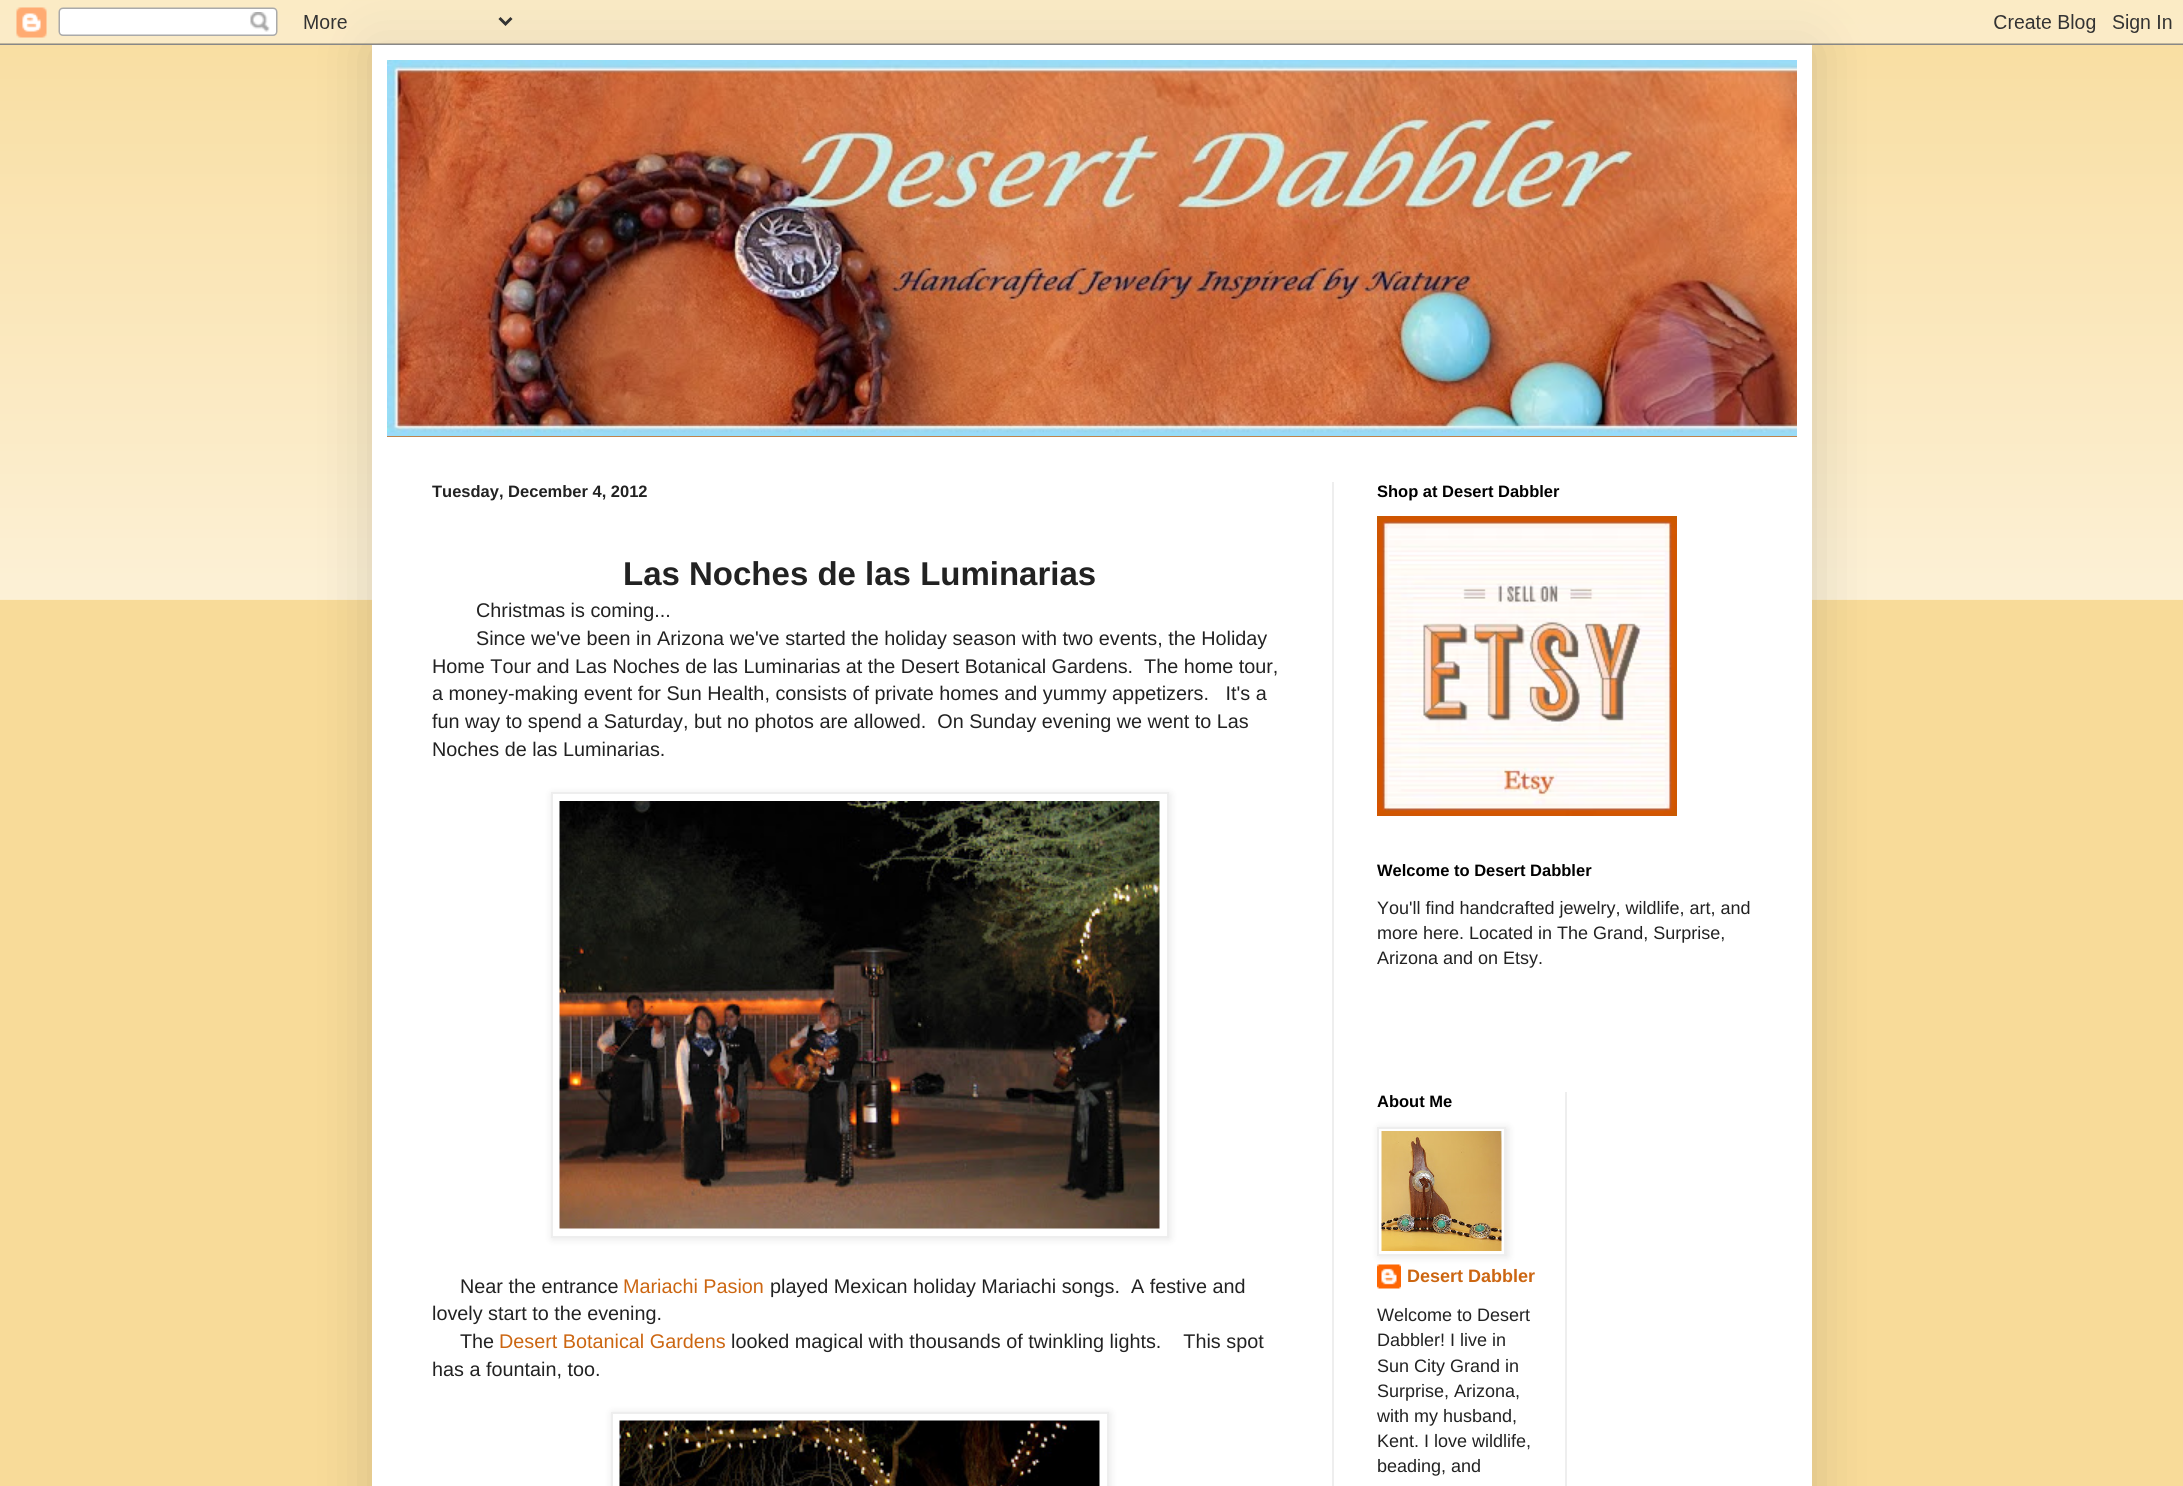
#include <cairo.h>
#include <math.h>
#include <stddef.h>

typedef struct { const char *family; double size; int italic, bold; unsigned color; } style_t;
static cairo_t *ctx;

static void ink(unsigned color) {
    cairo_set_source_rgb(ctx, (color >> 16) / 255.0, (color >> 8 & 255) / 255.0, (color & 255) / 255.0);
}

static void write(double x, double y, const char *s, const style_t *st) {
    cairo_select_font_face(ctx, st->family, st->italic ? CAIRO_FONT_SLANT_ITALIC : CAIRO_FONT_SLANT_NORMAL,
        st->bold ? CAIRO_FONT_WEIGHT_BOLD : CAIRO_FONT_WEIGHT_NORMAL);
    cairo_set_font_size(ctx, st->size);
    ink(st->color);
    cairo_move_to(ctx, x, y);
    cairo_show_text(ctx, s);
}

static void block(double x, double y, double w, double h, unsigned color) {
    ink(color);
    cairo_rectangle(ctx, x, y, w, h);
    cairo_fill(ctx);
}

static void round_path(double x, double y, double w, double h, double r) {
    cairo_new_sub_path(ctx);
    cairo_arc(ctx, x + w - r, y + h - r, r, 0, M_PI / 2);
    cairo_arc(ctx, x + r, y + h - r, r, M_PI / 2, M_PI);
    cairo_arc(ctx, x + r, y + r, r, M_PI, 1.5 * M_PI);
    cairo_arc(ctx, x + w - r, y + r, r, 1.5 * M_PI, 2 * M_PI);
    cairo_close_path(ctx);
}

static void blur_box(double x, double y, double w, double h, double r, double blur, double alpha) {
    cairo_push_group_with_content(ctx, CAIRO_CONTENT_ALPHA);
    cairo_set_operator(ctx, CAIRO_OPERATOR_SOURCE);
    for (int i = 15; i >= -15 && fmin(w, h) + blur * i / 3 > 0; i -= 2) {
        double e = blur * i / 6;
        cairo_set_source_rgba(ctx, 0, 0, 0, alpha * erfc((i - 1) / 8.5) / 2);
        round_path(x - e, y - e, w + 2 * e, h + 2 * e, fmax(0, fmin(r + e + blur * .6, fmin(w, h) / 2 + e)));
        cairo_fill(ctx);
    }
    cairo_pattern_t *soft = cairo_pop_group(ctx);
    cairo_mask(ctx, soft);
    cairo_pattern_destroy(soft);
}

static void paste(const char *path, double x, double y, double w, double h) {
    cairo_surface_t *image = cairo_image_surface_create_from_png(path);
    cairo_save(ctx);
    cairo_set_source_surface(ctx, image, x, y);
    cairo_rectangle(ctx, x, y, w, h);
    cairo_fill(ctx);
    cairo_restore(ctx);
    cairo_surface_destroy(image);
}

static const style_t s1 = {"Liberation Sans", 16.5, 0, 1, 0x222222};
static const style_t s2 = {"Liberation Sans", 33, 0, 1, 0x222222};
static const style_t s3 = {"Liberation Sans", 19.8, 0, 0, 0x222222};
static const style_t s4 = {"Liberation Sans", 19.8, 0, 0, 0xcc6611};
static const style_t s5 = {"Liberation Sans", 16.5, 0, 1, 0x000000};
static const style_t s6 = {"Liberation Sans", 18, 0, 0, 0x222222};
static const style_t s7 = {"Liberation Sans", 18, 0, 1, 0xcc6611};

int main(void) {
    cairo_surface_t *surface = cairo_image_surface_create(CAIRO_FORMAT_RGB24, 2183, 1486);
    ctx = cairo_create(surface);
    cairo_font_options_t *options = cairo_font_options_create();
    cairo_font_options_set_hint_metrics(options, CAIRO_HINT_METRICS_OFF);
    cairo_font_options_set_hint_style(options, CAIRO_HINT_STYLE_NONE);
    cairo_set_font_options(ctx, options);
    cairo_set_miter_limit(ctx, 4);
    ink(0xf8db99);
    cairo_paint(ctx);
    paste("pic1.png", 0, 0, 2183, 600);
    ink(0x000000);
    blur_box(372, 45, 1440, 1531, 0, 30, 0.15);
    paste("pic2.png", 0, 0, 2183, 45);
    block(372, 45, 1440, 1441, 0xffffff);
    block(387, 436, 1410, 1, 0xcc6611);
    paste("pic3.png", 387, 60, 1410, 377);
    block(1332, 482, 2, 1004, 0xeeeeee);
    write(432, 497, "Tuesday, December 4, 2012", &s1);
    write(623, 585, "Las Noches de las Luminarias", &s2);
    write(476, 617, "Christmas is coming...", &s3);
    write(476, 645, "Since we've been in Arizona we've started the holiday season with two events, the Holiday", &s3);
    write(432, 673, "Home Tour and Las Noches de las Luminarias at the Desert Botanical Gardens.  The home tour,", &s3);
    write(432, 700, "a money-making event for Sun Health, consists of private homes and yummy appetizers.   It's a", &s3);
    write(432, 728, "fun way to spend a Saturday, but no photos are allowed.  On Sunday evening we went to Las", &s3);
    write(432, 756, "Noches de las Luminarias.", &s3);
    ink(0x000000);
    blur_box(552, 794, 618, 445, 0, 4, 0.1);
    ink(0xffffff);
    cairo_rectangle(ctx, 552, 793, 616, 444);
    cairo_fill_preserve(ctx);
    ink(0xeeeeee);
    cairo_stroke(ctx);
    paste("pic4.png", 559, 801, 601, 428);
    write(460, 1293, "Near the entrance", &s3);
    write(623, 1293, "Mariachi Pasion", &s4);
    write(770, 1293, "played Mexican holiday Mariachi songs.  A festive and", &s3);
    write(432, 1320, "lovely start to the evening.", &s3);
    write(460, 1348, "The", &s3);
    write(499, 1348, "Desert Botanical Gardens", &s4);
    write(731, 1348, "looked magical with thousands of twinkling lights.    This spot", &s3);
    write(432, 1376, "has a fountain, too.", &s3);
    ink(0x000000);
    blur_box(612, 1413, 498, 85, 0, 4, 0.1);
    ink(0xffffff);
    cairo_rectangle(ctx, 612, 1413, 496, 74);
    cairo_fill_preserve(ctx);
    ink(0xeeeeee);
    cairo_stroke(ctx);
    paste("pic5.png", 619, 1420, 481, 66);
    write(1377, 497, "Shop at Desert Dabbler", &s5);
    paste("pic6.png", 1377, 516, 300, 300);
    write(1377, 876, "Welcome to Desert Dabbler", &s5);
    write(1377, 914, "You'll find handcrafted jewelry, wildlife, art, and", &s6);
    write(1377, 939, "more here. Located in The Grand, Surprise,", &s6);
    write(1377, 964, "Arizona and on Etsy.", &s6);
    write(1377, 1107, "About Me", &s5);
    paste("pic8.png", 1377, 1264, 24, 25);
    ink(0x000000);
    blur_box(1379, 1128, 129, 129, 0, 4, 0.1);
    ink(0xffffff);
    cairo_rectangle(ctx, 1378, 1128, 127, 127);
    cairo_fill_preserve(ctx);
    ink(0xeeeeee);
    cairo_stroke(ctx);
    paste("pic7.png", 1381, 1131, 121, 120);
    write(1407, 1282, "Desert Dabbler", &s7);
    write(1377, 1321, "Welcome to Desert", &s6);
    write(1377, 1346, "Dabbler! I live in", &s6);
    write(1377, 1372, "Sun City Grand in", &s6);
    write(1377, 1397, "Surprise, Arizona,", &s6);
    write(1377, 1422, "with my husband,", &s6);
    write(1377, 1447, "Kent. I love wildlife,", &s6);
    write(1377, 1472, "beading, and", &s6);
    block(1565, 1092, 2, 394, 0xeeeeee);
    cairo_surface_write_to_png(surface, "screenshot.png");
    cairo_font_options_destroy(options);
    cairo_destroy(ctx);
    cairo_surface_destroy(surface);
    return 0;
}
